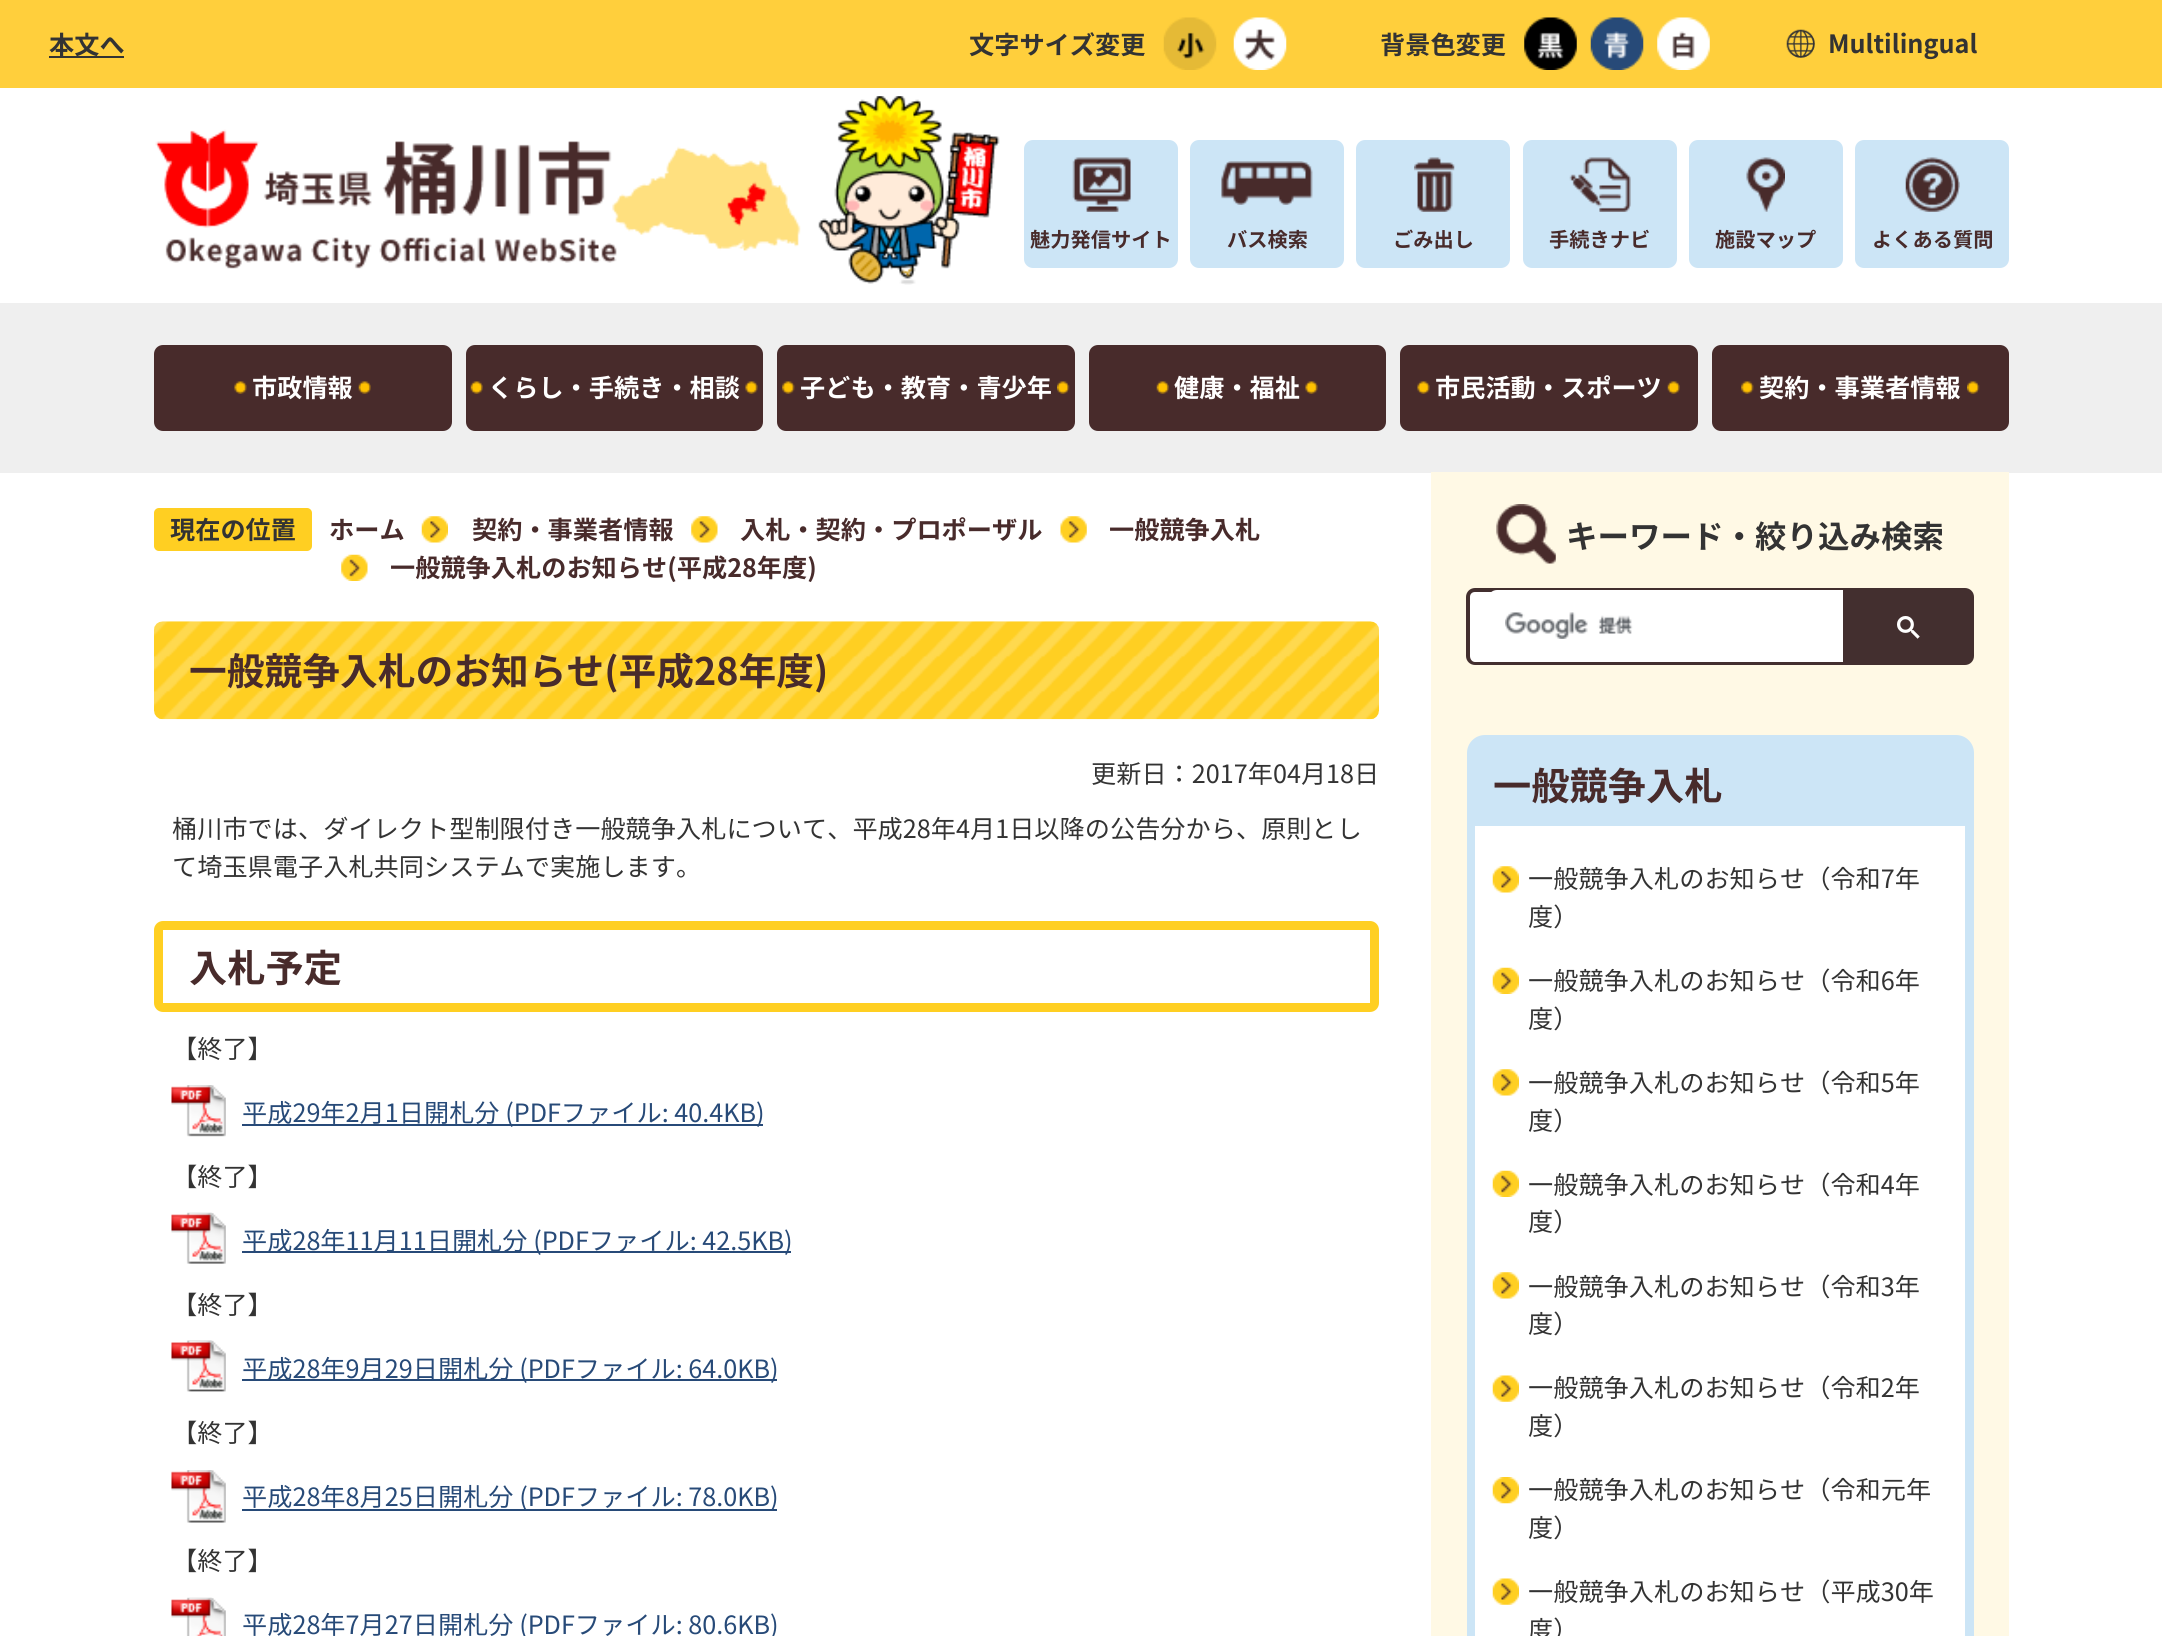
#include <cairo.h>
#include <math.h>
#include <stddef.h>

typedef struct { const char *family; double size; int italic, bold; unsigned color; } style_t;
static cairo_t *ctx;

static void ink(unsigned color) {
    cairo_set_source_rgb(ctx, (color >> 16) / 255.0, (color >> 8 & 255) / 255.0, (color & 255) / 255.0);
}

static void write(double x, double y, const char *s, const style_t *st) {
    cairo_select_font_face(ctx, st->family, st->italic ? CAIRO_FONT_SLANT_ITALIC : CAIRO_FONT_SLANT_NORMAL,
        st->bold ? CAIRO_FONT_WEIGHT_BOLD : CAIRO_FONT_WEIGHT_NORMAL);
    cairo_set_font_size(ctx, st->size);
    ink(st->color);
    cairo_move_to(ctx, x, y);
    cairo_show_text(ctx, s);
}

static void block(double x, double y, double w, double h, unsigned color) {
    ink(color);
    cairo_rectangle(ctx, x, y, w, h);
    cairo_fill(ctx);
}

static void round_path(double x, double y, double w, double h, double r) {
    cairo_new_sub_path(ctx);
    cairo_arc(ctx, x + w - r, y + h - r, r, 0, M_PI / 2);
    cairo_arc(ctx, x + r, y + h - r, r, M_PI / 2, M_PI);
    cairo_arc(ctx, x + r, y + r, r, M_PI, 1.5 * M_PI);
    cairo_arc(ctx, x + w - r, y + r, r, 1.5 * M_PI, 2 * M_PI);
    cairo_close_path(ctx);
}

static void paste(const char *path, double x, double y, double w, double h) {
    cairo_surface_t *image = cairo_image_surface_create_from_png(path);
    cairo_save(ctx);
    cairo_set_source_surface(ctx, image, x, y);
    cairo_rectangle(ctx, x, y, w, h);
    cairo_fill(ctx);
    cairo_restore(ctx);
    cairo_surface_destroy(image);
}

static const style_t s1 = {"Noto Sans JP", 25.2, 0, 1, 0x333333};
static const style_t s2 = {"Noto Sans JP", 20.25, 0, 1, 0x482b2b};
static const style_t s3 = {"Noto Sans JP", 25.2, 0, 1, 0xffffff};
static const style_t s4 = {"Noto Sans JP", 25.2, 0, 1, 0x482b2b};
static const style_t s5 = {"Noto Sans JP", 37.75, 0, 1, 0x482b2b};
static const style_t s6 = {"Noto Sans JP", 25.2, 0, 0, 0x333333};
static const style_t s7 = {"Noto Sans JP", 38.25, 0, 1, 0x482b2b};
static const style_t s8 = {"Noto Sans JP", 25.2, 0, 0, 0x274a78};
static const style_t s9 = {"Noto Sans JP", 31.5, 0, 1, 0x333333};

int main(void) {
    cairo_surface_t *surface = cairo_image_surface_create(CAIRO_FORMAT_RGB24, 2162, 1636);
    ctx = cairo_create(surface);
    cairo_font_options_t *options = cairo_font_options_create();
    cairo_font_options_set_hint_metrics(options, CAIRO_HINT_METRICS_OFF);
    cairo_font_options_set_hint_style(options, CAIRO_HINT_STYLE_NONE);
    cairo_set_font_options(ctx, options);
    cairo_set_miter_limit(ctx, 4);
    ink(0xffffff);
    cairo_paint(ctx);
    block(0, 0, 2162, 88, 0xffcf3c);
    block(49, 56, 75, 2, 0x333333);
    write(49, 54, "本文へ", &s1);
    write(969, 54, "文字サイズ変更", &s1);
    paste("pic1.png", 1163, 17, 54, 53);
    paste("pic2.png", 1233, 17, 54, 53);
    write(1380, 54, "背景色変更", &s1);
    paste("pic3.png", 1524, 17, 53, 53);
    paste("pic4.png", 1590, 17, 54, 53);
    paste("pic5.png", 1657, 17, 53, 53);
    paste("pic6.png", 1786, 29, 29, 29);
    write(1828, 53, "Multilingual", &s1);
    paste("pic7.png", 155, 96, 845, 189);
    ink(0xcce5f6);
    round_path(1024, 140, 154, 128, 9);
    cairo_fill(ctx);
    paste("pic8.png", 1072, 157, 59, 55);
    write(1030, 247, "魅力発信サイト", &s2);
    ink(0xcce5f6);
    round_path(1190, 140, 154, 128, 9);
    cairo_fill(ctx);
    paste("pic9.png", 1221, 161, 92, 44);
    write(1227, 247, "バス検索", &s2);
    ink(0xcce5f6);
    round_path(1356, 140, 154, 128, 9);
    cairo_fill(ctx);
    paste("pic10.png", 1414, 157, 41, 55);
    write(1393, 247, "ごみ出し", &s2);
    ink(0xcce5f6);
    round_path(1523, 140, 154, 128, 9);
    cairo_fill(ctx);
    paste("pic11.png", 1569, 157, 62, 55);
    write(1549, 247, "手続きナビ", &s2);
    ink(0xcce5f6);
    round_path(1689, 140, 154, 128, 9);
    cairo_fill(ctx);
    paste("pic12.png", 1746, 157, 39, 55);
    write(1715, 247, "施設マップ", &s2);
    ink(0xcce5f6);
    round_path(1855, 140, 154, 128, 9);
    cairo_fill(ctx);
    paste("pic13.png", 1905, 157, 55, 55);
    write(1872, 247, "よくある質問", &s2);
    block(0, 303, 2162, 170, 0xefefef);
    ink(0x482b2b);
    round_path(154, 345, 298, 86, 9);
    cairo_fill(ctx);
    paste("pic14.png", 234, 381, 137, 13);
    write(252, 397, "市政情報", &s3);
    ink(0x482b2b);
    round_path(466, 345, 297, 86, 9);
    cairo_fill(ctx);
    paste("pic15.png", 470, 381, 288, 13);
    write(488, 397, "くらし・手続き・相談", &s3);
    ink(0x482b2b);
    round_path(777, 345, 298, 86, 9);
    cairo_fill(ctx);
    paste("pic16.png", 782, 381, 288, 13);
    write(800, 397, "子ども・教育・青少年", &s3);
    ink(0x482b2b);
    round_path(1089, 345, 297, 86, 9);
    cairo_fill(ctx);
    paste("pic17.png", 1156, 381, 162, 13);
    write(1174, 397, "健康・福祉", &s3);
    ink(0x482b2b);
    round_path(1400, 345, 298, 86, 9);
    cairo_fill(ctx);
    paste("pic18.png", 1417, 381, 263, 13);
    write(1435, 397, "市民活動・スポーツ", &s3);
    ink(0x482b2b);
    round_path(1712, 345, 297, 86, 9);
    cairo_fill(ctx);
    paste("pic19.png", 1741, 381, 239, 13);
    write(1759, 397, "契約・事業者情報", &s3);
    block(1431, 472, 578, 1164, 0xfff9e5);
    ink(0xffcf22);
    round_path(154, 508, 158, 43, 5);
    cairo_fill(ctx);
    write(170, 539, "現在の位置", &s1);
    write(329, 539, "ホーム", &s4);
    paste("pic20.png", 421, 516, 27, 27);
    write(472, 539, "契約・事業者情報", &s4);
    paste("pic21.png", 691, 516, 27, 27);
    write(740, 539, "入札・契約・プロポーザル", &s4);
    paste("pic22.png", 1060, 516, 27, 27);
    write(1109, 539, "一般競争入札", &s4);
    paste("pic23.png", 341, 554, 27, 27);
    write(390, 577, "一般競争入札のお知らせ(平成28年度)", &s4);
    paste("pic24.png", 154, 621, 1225, 99);
    write(189, 685, "一般競争入札のお知らせ(平成28年度)", &s5);
    write(1091, 783, "更新日：2017年04月18日", &s6);
    write(172, 838, "桶川市では、ダイレクト型制限付き一般競争入札について、平成28年4月1日以降の公告分から、原則とし", &s6);
    write(172, 876, "て埼玉県電子入札共同システムで実施します。", &s6);
    round_path(158.5, 925.5, 1216, 82, 4.5);
    ink(0xffcf22);
    cairo_set_line_width(ctx, 9);
    cairo_stroke(ctx);
    write(189, 982, "入札予定", &s7);
    write(172, 1058, "【終了】", &s6);
    paste("pic25.png", 171, 1085, 55, 52);
    block(242, 1124, 521, 2, 0x274a78);
    write(242, 1122, "平成29年2月1日開札分 (PDFファイル: 40.4KB)", &s8);
    write(172, 1186, "【終了】", &s6);
    paste("pic26.png", 171, 1212, 55, 52);
    block(242, 1251, 549, 2, 0x274a78);
    write(242, 1250, "平成28年11月11日開札分 (PDFファイル: 42.5KB)", &s8);
    write(172, 1314, "【終了】", &s6);
    paste("pic27.png", 171, 1340, 55, 52);
    block(242, 1379, 535, 2, 0x274a78);
    write(242, 1378, "平成28年9月29日開札分 (PDFファイル: 64.0KB)", &s8);
    write(172, 1442, "【終了】", &s6);
    paste("pic28.png", 171, 1470, 55, 53);
    block(242, 1509, 535, 2, 0x274a78);
    write(242, 1506, "平成28年8月25日開札分 (PDFファイル: 78.0KB)", &s8);
    write(172, 1570, "【終了】", &s6);
    paste("pic29.png", 171, 1597, 55, 39);
    write(242, 1634, "平成28年7月27日開札分 (PDFファイル: 80.6KB)", &s8);
    paste("pic30.png", 1496, 504, 60, 60);
    write(1566, 548, "キーワード・絞り込み検索", &s9);
    ink(0xffffff);
    cairo_new_path(ctx);
    cairo_move_to(ctx, 1476, 588);
    cairo_line_to(ctx, 1843, 588);
    cairo_line_to(ctx, 1843, 665);
    cairo_line_to(ctx, 1476, 665);
    cairo_curve_to(ctx, 1471, 665, 1467, 661, 1467, 656);
    cairo_line_to(ctx, 1467, 597);
    cairo_curve_to(ctx, 1467, 592, 1471, 588, 1476, 588);
    cairo_close_path(ctx);
    cairo_fill(ctx);
    ink(0x432f2f);
    cairo_set_fill_rule(ctx, CAIRO_FILL_RULE_EVEN_ODD);
    cairo_new_path(ctx);
    cairo_move_to(ctx, 1475, 588);
    cairo_line_to(ctx, 1843, 588);
    cairo_line_to(ctx, 1843, 665);
    cairo_line_to(ctx, 1475, 665);
    cairo_curve_to(ctx, 1470, 665, 1466, 661, 1466, 656);
    cairo_line_to(ctx, 1466, 597);
    cairo_curve_to(ctx, 1466, 592, 1470, 588, 1475, 588);
    cairo_close_path(ctx);
    cairo_move_to(ctx, 1475, 592);
    cairo_line_to(ctx, 1843, 592);
    cairo_line_to(ctx, 1843, 662);
    cairo_line_to(ctx, 1475, 662);
    cairo_curve_to(ctx, 1472, 662, 1470, 659, 1470, 656);
    cairo_line_to(ctx, 1470, 597);
    cairo_curve_to(ctx, 1470, 594, 1472, 592, 1475, 592);
    cairo_close_path(ctx);
    cairo_fill(ctx);
    ink(0xffffff);
    cairo_new_path(ctx);
    cairo_move_to(ctx, 1497, 590);
    cairo_line_to(ctx, 1843, 590);
    cairo_line_to(ctx, 1843, 660);
    cairo_line_to(ctx, 1497, 660);
    cairo_curve_to(ctx, 1492, 660, 1488, 656, 1488, 651);
    cairo_line_to(ctx, 1488, 599);
    cairo_curve_to(ctx, 1488, 594, 1492, 590, 1497, 590);
    cairo_close_path(ctx);
    cairo_fill(ctx);
    paste("pic31.png", 1505, 612, 128, 27);
    ink(0x432f2f);
    cairo_new_path(ctx);
    cairo_move_to(ctx, 1843, 588);
    cairo_line_to(ctx, 1965, 588);
    cairo_curve_to(ctx, 1970, 588, 1974, 592, 1974, 597);
    cairo_line_to(ctx, 1974, 656);
    cairo_curve_to(ctx, 1974, 661, 1970, 665, 1965, 665);
    cairo_line_to(ctx, 1843, 665);
    cairo_close_path(ctx);
    cairo_fill(ctx);
    paste("pic32.png", 1897, 616, 23, 23);
    ink(0xcce5f6);
    cairo_new_path(ctx);
    cairo_move_to(ctx, 1485, 735);
    cairo_line_to(ctx, 1956, 735);
    cairo_curve_to(ctx, 1966, 735, 1974, 743, 1974, 753);
    cairo_line_to(ctx, 1974, 826);
    cairo_line_to(ctx, 1467, 826);
    cairo_line_to(ctx, 1467, 753);
    cairo_curve_to(ctx, 1467, 743, 1475, 735, 1485, 735);
    cairo_close_path(ctx);
    cairo_fill(ctx);
    write(1493, 800, "一般競争入札", &s7);
    block(1467, 826, 507, 810, 0xcce5f6);
    block(1475, 826, 490, 810, 0xffffff);
    paste("pic20.png", 1492, 866, 27, 27);
    write(1528, 888, "一般競争入札のお知らせ（令和7年", &s6);
    write(1528, 926, "度）", &s6);
    paste("pic33.png", 1492, 967, 27, 27);
    write(1528, 990, "一般競争入札のお知らせ（令和6年", &s6);
    write(1528, 1028, "度）", &s6);
    paste("pic20.png", 1492, 1069, 27, 27);
    write(1528, 1092, "一般競争入札のお知らせ（令和5年", &s6);
    write(1528, 1130, "度）", &s6);
    paste("pic33.png", 1492, 1170, 27, 27);
    write(1528, 1194, "一般競争入札のお知らせ（令和4年", &s6);
    write(1528, 1231, "度）", &s6);
    paste("pic20.png", 1492, 1272, 27, 27);
    write(1528, 1296, "一般競争入札のお知らせ（令和3年", &s6);
    write(1528, 1333, "度）", &s6);
    paste("pic34.png", 1492, 1375, 27, 27);
    write(1528, 1397, "一般競争入札のお知らせ（令和2年", &s6);
    write(1528, 1435, "度）", &s6);
    paste("pic35.png", 1492, 1477, 27, 27);
    write(1528, 1499, "一般競争入札のお知らせ（令和元年", &s6);
    write(1528, 1537, "度）", &s6);
    paste("pic34.png", 1492, 1578, 27, 27);
    write(1528, 1601, "一般競争入札のお知らせ（平成30年", &s6);
    write(1528, 1639, "度）", &s6);
    cairo_surface_write_to_png(surface, "screenshot.png");
    cairo_font_options_destroy(options);
    cairo_destroy(ctx);
    cairo_surface_destroy(surface);
    return 0;
}
